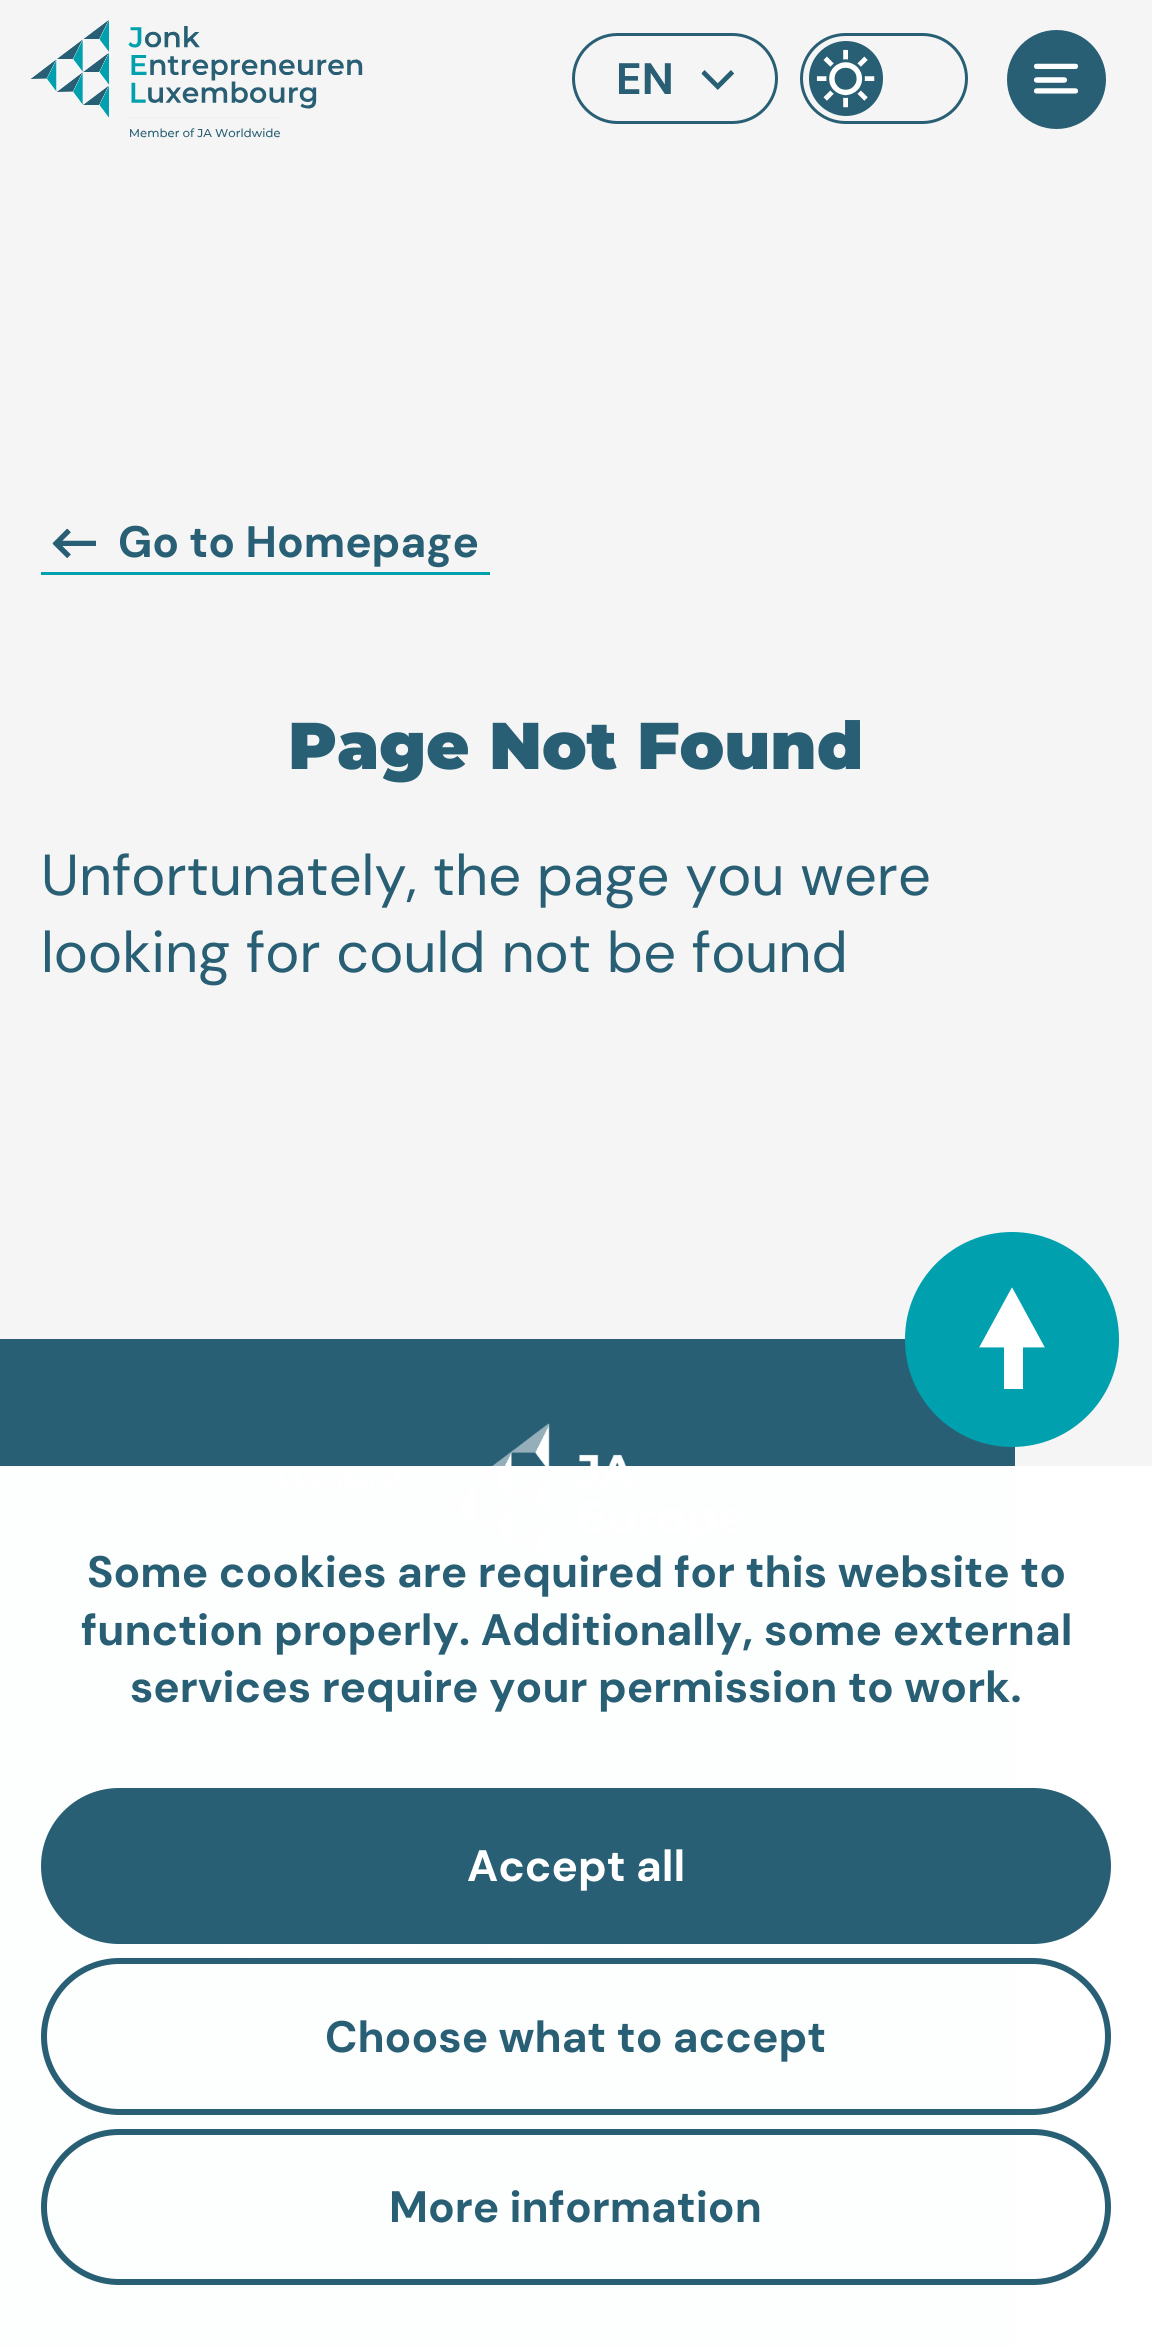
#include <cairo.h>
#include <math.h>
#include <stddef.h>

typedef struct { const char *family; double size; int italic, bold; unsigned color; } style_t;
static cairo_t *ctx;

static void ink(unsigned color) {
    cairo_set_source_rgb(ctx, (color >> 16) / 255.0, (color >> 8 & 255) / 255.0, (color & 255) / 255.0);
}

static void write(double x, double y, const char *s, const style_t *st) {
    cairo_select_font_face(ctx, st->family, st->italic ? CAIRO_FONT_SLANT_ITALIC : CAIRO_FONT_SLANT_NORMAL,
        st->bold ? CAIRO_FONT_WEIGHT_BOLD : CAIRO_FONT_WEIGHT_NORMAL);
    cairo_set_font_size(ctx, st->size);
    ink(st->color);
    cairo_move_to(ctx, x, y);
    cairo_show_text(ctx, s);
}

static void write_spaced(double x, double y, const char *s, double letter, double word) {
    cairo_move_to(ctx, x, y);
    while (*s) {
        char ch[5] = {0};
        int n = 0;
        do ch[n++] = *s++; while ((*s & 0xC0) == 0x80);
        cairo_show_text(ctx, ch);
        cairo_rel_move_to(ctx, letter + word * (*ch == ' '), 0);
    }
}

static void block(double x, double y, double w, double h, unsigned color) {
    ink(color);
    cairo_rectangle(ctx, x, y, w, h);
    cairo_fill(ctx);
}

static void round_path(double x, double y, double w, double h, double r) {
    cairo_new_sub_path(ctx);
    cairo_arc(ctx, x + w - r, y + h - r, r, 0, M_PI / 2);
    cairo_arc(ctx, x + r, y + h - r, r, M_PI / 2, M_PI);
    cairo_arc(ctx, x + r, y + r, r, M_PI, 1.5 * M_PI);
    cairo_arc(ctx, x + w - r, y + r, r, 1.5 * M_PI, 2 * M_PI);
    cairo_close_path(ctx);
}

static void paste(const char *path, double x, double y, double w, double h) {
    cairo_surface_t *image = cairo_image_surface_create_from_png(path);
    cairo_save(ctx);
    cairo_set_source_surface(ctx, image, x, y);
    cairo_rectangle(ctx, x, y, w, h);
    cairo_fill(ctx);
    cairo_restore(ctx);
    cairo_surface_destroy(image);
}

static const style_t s1 = {"DM Sans", 44, 0, 1, 0x285f74};
static const style_t s2 = {"Montserrat Black", 66, 0, 0, 0x285f74};
static const style_t s3 = {"DM Sans", 44, 0, 1, 0xffffff};

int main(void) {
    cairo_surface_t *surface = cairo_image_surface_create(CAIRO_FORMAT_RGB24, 1152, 2347);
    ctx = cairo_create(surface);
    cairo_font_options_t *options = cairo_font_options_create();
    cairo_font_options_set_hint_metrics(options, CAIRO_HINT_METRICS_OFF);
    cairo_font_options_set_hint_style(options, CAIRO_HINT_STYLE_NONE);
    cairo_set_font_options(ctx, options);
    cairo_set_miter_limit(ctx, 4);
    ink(0xf5f5f5);
    cairo_paint(ctx);
    paste("pic1.png", 31, 20, 332, 118);
    round_path(573.5, 34.5, 203, 88, 44);
    ink(0x285f74);
    cairo_set_line_width(ctx, 3);
    cairo_stroke(ctx);
    write(616, 94, "EN", &s1);
    paste("pic2.png", 701, 70, 33, 20);
    round_path(801.5, 34.5, 165, 88, 44);
    cairo_stroke(ctx);
    round_path(809, 41, 74, 75, 37);
    cairo_fill(ctx);
    paste("pic3.png", 816, 49, 59, 59);
    cairo_arc(ctx, 1056.5, 79.5, 49.5, 0, 2 * M_PI);
    cairo_fill(ctx);
    paste("pic4.png", 1034, 63, 44, 31);
    block(41, 572, 449, 3, 0x00a0af);
    paste("pic5.png", 52, 528, 44, 30);
    write(118, 557, "Go to Homepage", &s1);
    write(288, 769, "Page Not Found", &s2);
    cairo_select_font_face(ctx, "DM Sans", CAIRO_FONT_SLANT_NORMAL, CAIRO_FONT_WEIGHT_NORMAL);
    cairo_set_font_size(ctx, 57.75);
    write_spaced(41, 895, "Unfortunately, the page you were", 0, 0.5);
    write_spaced(41, 972, "looking for could not be found", 0, 0.5);
    block(0, 1339, 1015, 1008, 0x285f74);
    ink(0x00a0af);
    round_path(910.5, 1237.5, 203, 204, 101.5);
    cairo_fill_preserve(ctx);
    cairo_set_line_width(ctx, 11);
    cairo_stroke(ctx);
    block(1004, 1347, 19, 42, 0xffffff);
    paste("pic6.png", 979, 1287, 66, 61);
    paste("pic7.png", 274, 1423, 471, 190);
    cairo_arc(ctx, 253.5, 1908.5, 49.5, 0, 2 * M_PI);
    cairo_fill(ctx);
    cairo_arc(ctx, 385.5, 1908.5, 49.5, 0, 2 * M_PI);
    cairo_fill(ctx);
    cairo_arc(ctx, 517.5, 1908.5, 49.5, 0, 2 * M_PI);
    cairo_fill(ctx);
    cairo_arc(ctx, 649.5, 1908.5, 49.5, 0, 2 * M_PI);
    cairo_fill(ctx);
    block(204, 2162, 247, 3, 0xffffff);
    block(204, 2272, 145, 3, 0xffffff);
    cairo_set_source_rgba(ctx, 1, 1, 1, 0.99);
    cairo_rectangle(ctx, 0, 1466, 1152, 881);
    cairo_fill(ctx);
    cairo_select_font_face(ctx, "DM Sans", CAIRO_FONT_SLANT_NORMAL, CAIRO_FONT_WEIGHT_BOLD);
    cairo_set_font_size(ctx, 44);
    ink(0x285f74);
    write_spaced(87, 1587, "Some cookies are required for this website to", 0, 0.25);
    write_spaced(81, 1645, "function properly. Additionally, some external", 0, 0.5);
    write_spaced(130, 1702, "services require your permission to work.", 0, 0.25);
    round_path(44, 1791, 1064, 150, 75);
    cairo_fill_preserve(ctx);
    cairo_set_line_width(ctx, 6);
    cairo_stroke(ctx);
    write(467, 1881, "Accept all", &s3);
    round_path(44, 1961, 1064, 151, 75.5);
    ink(0x285f74);
    cairo_stroke(ctx);
    write(325, 2052, "Choose what to accept", &s1);
    round_path(44, 2132, 1064, 150, 75);
    cairo_stroke(ctx);
    write(389, 2222, "More information", &s1);
    cairo_surface_write_to_png(surface, "screenshot.png");
    cairo_font_options_destroy(options);
    cairo_destroy(ctx);
    cairo_surface_destroy(surface);
    return 0;
}
